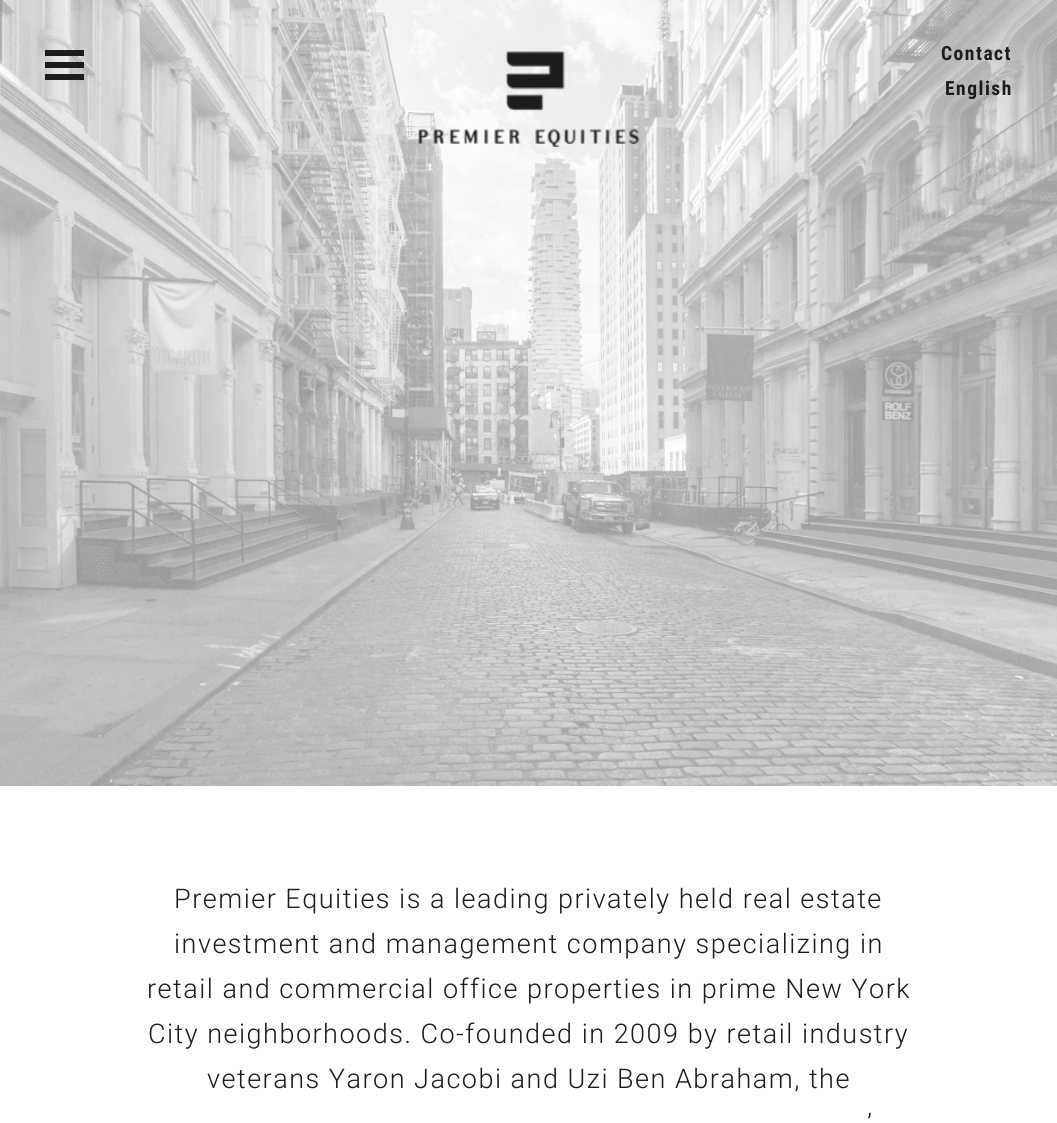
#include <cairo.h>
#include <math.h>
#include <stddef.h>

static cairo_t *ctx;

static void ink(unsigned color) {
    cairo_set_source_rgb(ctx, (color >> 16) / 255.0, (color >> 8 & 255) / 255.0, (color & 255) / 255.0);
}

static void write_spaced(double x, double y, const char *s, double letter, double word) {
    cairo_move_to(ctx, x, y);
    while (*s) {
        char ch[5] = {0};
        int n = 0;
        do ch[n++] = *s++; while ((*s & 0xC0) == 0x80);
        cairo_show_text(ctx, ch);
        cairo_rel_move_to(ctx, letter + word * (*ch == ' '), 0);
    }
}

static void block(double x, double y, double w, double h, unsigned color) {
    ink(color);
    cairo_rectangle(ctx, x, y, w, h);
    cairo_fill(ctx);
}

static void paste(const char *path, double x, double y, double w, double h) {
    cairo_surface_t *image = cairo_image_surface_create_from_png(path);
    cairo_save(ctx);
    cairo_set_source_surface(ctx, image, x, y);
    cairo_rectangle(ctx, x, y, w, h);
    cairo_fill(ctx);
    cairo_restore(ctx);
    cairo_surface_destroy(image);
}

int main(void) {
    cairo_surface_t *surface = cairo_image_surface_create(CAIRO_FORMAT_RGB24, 1057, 1123);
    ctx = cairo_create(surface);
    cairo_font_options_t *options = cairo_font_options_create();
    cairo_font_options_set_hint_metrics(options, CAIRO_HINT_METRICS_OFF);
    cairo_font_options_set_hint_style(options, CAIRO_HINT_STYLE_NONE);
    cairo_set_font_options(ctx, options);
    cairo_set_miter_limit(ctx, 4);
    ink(0xffffff);
    cairo_paint(ctx);
    paste("pic2.png", 0, 0, 1057, 786);
    block(45, 50, 39, 6, 0x1c1c1c);
    block(45, 62, 39, 6, 0x1c1c1c);
    block(45, 74, 39, 6, 0x1c1c1c);
    paste("pic1.png", 418, 51, 222, 96);
    cairo_select_font_face(ctx, "Roboto Condensed", CAIRO_FONT_SLANT_NORMAL, CAIRO_FONT_WEIGHT_BOLD);
    cairo_set_font_size(ctx, 19.5);
    write_spaced(941, 60, "Contact", 1.5, 0);
    write_spaced(945, 95, "English", 1.5, 0);
    cairo_select_font_face(ctx, "Roboto Light", CAIRO_FONT_SLANT_NORMAL, CAIRO_FONT_WEIGHT_NORMAL);
    cairo_set_font_size(ctx, 27);
    write_spaced(174, 908, "Premier Equities is a leading privately held real estate", 1.5, 0);
    write_spaced(174, 953, "investment and management company specializing in", 1.5, 0);
    write_spaced(147, 998, "retail and commercial office properties in prime New York", 1.5, 0);
    write_spaced(148, 1043, "City neighborhoods. Co-founded in 2009 by retail industry", 1.5, 0);
    write_spaced(207, 1088, "veterans Yaron Jacobi and Uzi Ben Abraham, the", 1.5, 0);
    write_spaced(867, 1133, "’", 1.5, 0);
    cairo_surface_write_to_png(surface, "screenshot.png");
    cairo_font_options_destroy(options);
    cairo_destroy(ctx);
    cairo_surface_destroy(surface);
    return 0;
}
